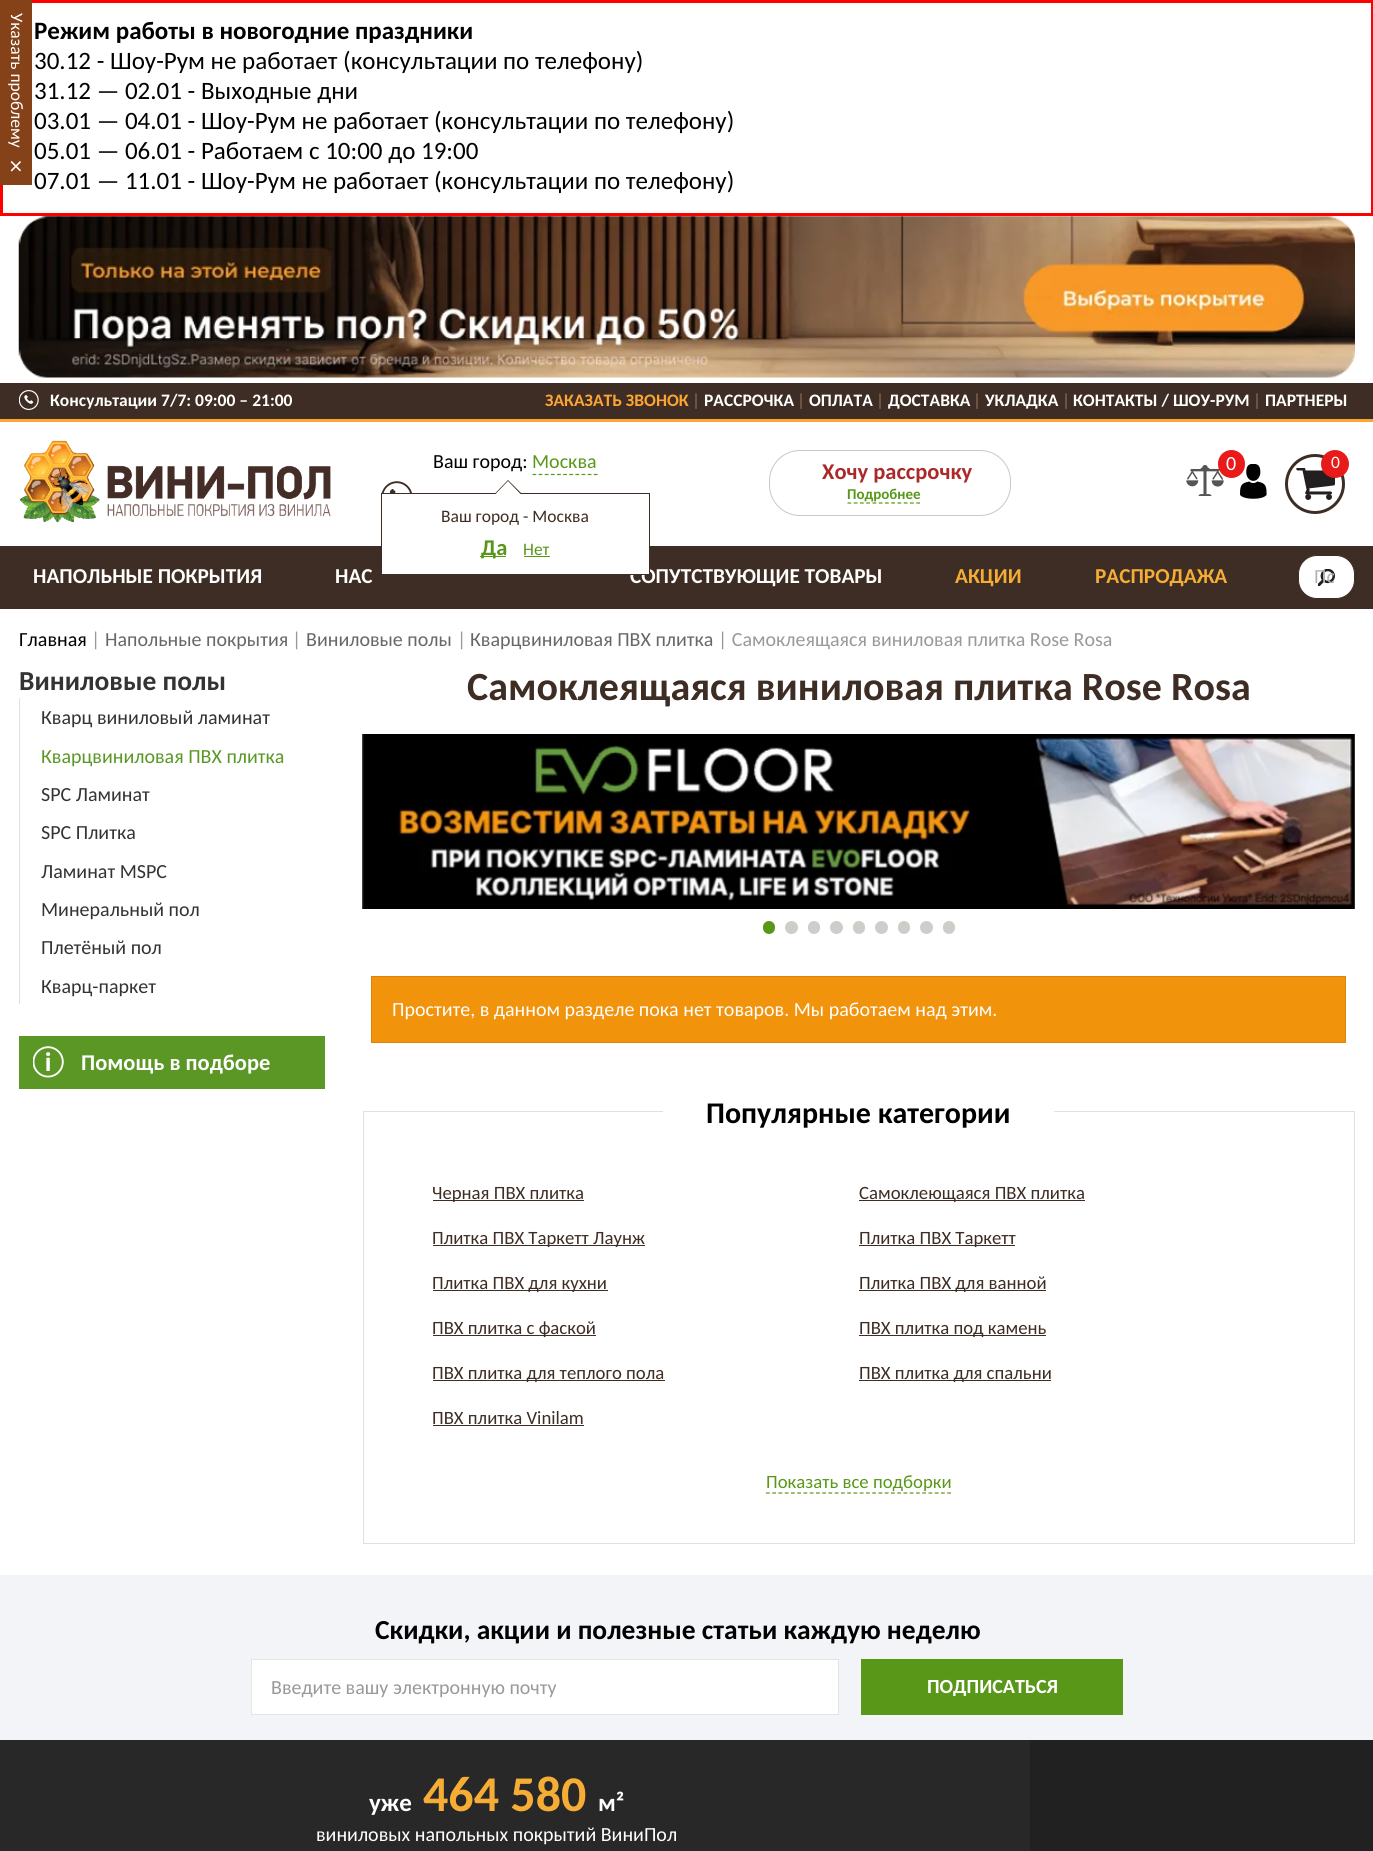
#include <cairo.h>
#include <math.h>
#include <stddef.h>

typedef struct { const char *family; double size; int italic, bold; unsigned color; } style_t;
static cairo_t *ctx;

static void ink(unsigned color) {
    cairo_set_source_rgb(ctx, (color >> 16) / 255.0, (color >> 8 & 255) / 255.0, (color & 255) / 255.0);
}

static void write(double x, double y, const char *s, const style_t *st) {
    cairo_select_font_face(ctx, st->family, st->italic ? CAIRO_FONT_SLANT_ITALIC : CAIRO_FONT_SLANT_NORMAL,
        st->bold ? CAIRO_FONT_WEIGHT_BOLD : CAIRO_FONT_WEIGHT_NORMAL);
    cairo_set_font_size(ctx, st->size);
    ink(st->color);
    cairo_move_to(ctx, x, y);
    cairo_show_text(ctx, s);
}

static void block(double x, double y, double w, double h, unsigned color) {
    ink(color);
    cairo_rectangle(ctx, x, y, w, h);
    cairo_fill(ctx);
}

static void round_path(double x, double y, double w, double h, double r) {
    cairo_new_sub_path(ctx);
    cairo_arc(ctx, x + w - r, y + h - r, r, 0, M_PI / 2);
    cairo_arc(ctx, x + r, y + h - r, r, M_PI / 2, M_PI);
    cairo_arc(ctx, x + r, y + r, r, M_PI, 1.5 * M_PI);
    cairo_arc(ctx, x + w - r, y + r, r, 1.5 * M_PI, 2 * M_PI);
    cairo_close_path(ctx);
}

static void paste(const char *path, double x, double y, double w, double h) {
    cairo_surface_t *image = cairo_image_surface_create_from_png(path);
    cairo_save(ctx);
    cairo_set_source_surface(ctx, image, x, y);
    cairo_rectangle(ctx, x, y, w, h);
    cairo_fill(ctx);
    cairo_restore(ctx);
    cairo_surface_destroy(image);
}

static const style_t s1 = {"Carlito", 17.5, 0, 0, 0xffffff};
static const style_t s2 = {"Carlito", 25, 0, 0, 0xffffff};
static const style_t s3 = {"Carlito", 25, 0, 1, 0x000000};
static const style_t s4 = {"Carlito", 25, 0, 0, 0x000000};
static const style_t s5 = {"Carlito", 17.5, 0, 1, 0xffffff};
static const style_t s6 = {"Carlito", 17.5, 0, 1, 0xfca533};
static const style_t s7 = {"Carlito", 17.5, 0, 0, 0x8b6e5f};
static const style_t s8 = {"Carlito", 20, 0, 0, 0x000000};
static const style_t s9 = {"Carlito", 20, 0, 0, 0x599719};
static const style_t s10 = {"Carlito", 21.25, 0, 1, 0xffffff};
static const style_t s11 = {"Carlito", 17.5, 0, 0, 0x3e2d24};
static const style_t s12 = {"Carlito", 22.5, 0, 1, 0x599719};
static const style_t s13 = {"Carlito", 17.5, 0, 0, 0x599719};
static const style_t s14 = {"Carlito", 22.5, 0, 1, 0xab2929};
static const style_t s15 = {"Carlito", 15, 0, 1, 0x599719};
static const style_t s16 = {"Carlito", 20, 0, 0, 0xffffff};
static const style_t s17 = {"Carlito", 21.25, 0, 1, 0xf5ad35};
static const style_t s18 = {"Carlito", 20, 0, 0, 0xb3b2b2};
static const style_t s19 = {"Carlito", 20, 0, 0, 0x999999};
static const style_t s20 = {"Carlito", 20, 0, 0, 0x676767};
static const style_t s21 = {"Carlito", 27.5, 0, 1, 0x333333};
static const style_t s22 = {"Carlito", 20, 0, 0, 0x333333};
static const style_t s23 = {"Carlito", 20, 0, 0, 0x5a9725};
static const style_t s24 = {"Carlito", 22.5, 0, 1, 0xffffff};
static const style_t s25 = {"Carlito", 40, 0, 1, 0x3e2d24};
static const style_t s26 = {"Carlito", 30, 0, 1, 0x000000};
static const style_t s27 = {"Carlito", 18.75, 0, 0, 0x3e2d24};
static const style_t s28 = {"Carlito", 18.75, 0, 0, 0x599719};
static const style_t s29 = {"Carlito", 27.5, 0, 1, 0x000000};
static const style_t s30 = {"Carlito", 20, 0, 1, 0xffffff};
static const style_t s31 = {"Carlito", 25, 0, 1, 0xffffff};
static const style_t s32 = {"Carlito", 50, 0, 1, 0xf5ad35};

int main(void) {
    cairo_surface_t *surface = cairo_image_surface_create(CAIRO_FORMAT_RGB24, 1373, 1851);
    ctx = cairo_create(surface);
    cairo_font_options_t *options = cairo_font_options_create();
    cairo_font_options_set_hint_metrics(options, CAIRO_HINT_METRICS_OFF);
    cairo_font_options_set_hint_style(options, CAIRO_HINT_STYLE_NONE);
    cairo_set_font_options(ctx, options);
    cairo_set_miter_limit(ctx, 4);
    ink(0xffffff);
    cairo_paint(ctx);
    cairo_rectangle(ctx, 1.5, 1.5, 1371, 213);
    ink(0xff0000);
    cairo_set_line_width(ctx, 3);
    cairo_stroke(ctx);
    block(0, 0, 32, 185, 0x854118);
    cairo_save(ctx);
    cairo_translate(ctx, 11, 13);
    cairo_rotate(ctx, 90 * M_PI / 180);
    write(0, 0, "Указать проблему", &s1);
    cairo_restore(ctx);
    cairo_save(ctx);
    cairo_translate(ctx, 8, 160);
    cairo_rotate(ctx, 90 * M_PI / 180);
    write(0, 0, "×", &s2);
    cairo_restore(ctx);
    write(34, 39, "Режим работы в новогодние праздники", &s3);
    write(34, 69, "30.12 - Шоу-Рум не работает (консультации по телефону)", &s4);
    write(34, 99, "31.12 — 02.01 - Выходные дни", &s4);
    write(34, 129, "03.01 — 04.01 - Шоу-Рум не работает (консультации по телефону)", &s4);
    write(34, 159, "05.01 — 06.01 - Работаем с 10:00 до 19:00", &s4);
    write(34, 189, "07.01 — 11.01 - Шоу-Рум не работает (консультации по телефону)", &s4);
    paste("pic1.png", 18, 216, 1337, 162);
    block(0, 383, 1373, 36, 0x3e2d24);
    block(0, 419, 1373, 3, 0xfca533);
    paste("pic2.png", 19, 390, 20, 20);
    write(50, 406, "Консультации 7/7: 09:00 ‒ 21:00", &s5);
    write(545, 406, "ЗАКАЗАТЬ ЗВОНОК", &s6);
    write(692, 406, "|", &s7);
    write(704, 406, "РАССРОЧКА", &s5);
    write(797, 406, "|", &s7);
    write(809, 406, "ОПЛАТА", &s5);
    write(876, 406, "|", &s7);
    write(888, 406, "ДОСТАВКА", &s5);
    write(973, 406, "|", &s7);
    write(985, 406, "УКЛАДКА", &s5);
    write(1062, 406, "|", &s7);
    write(1073, 406, "КОНТАКТЫ / ШОУ-РУМ", &s5);
    write(1253, 406, "|", &s7);
    write(1265, 406, "ПАРТНЕРЫ", &s5);
    paste("pic3.png", 19, 440, 312, 83);
    paste("pic4.png", 381, 481, 31, 12);
    write(433, 468, "Ваш город:", &s8);
    write(532, 468, "Москва", &s9);
    cairo_new_path(ctx);
    cairo_move_to(ctx, 532.5, 474.5);
    cairo_line_to(ctx, 597.5, 474.5);
    cairo_set_line_width(ctx, 1.2);
    cairo_set_dash(ctx, (double[]){3.75, 2.38}, 2, 0);
    cairo_stroke(ctx);
    block(0, 546, 1373, 63, 0x3e2d24);
    block(382, 546, 267, 28, 0xffffff);
    write(630, 583, "СОПУТСТВУЮЩИЕ ТОВАРЫ", &s10);
    cairo_rectangle(ctx, 381.5, 493.5, 268, 81);
    ink(0x3e2d24);
    cairo_set_line_width(ctx, 1);
    cairo_set_dash(ctx, NULL, 0, 0);
    cairo_stroke(ctx);
    cairo_new_path(ctx);
    cairo_move_to(ctx, 522, 494);
    cairo_line_to(ctx, 494.5, 494);
    cairo_line_to(ctx, 508, 480);
    cairo_close_path(ctx);
    cairo_fill(ctx);
    ink(0xffffff);
    cairo_new_path(ctx);
    cairo_move_to(ctx, 520.5, 494);
    cairo_line_to(ctx, 495.5, 494);
    cairo_line_to(ctx, 508, 481);
    cairo_close_path(ctx);
    cairo_fill(ctx);
    write(441, 522, "Ваш город - Москва", &s11);
    block(480, 556, 26, 1, 0x599719);
    write(481, 555, "Да", &s12);
    write(523, 555, "Нет", &s13);
    block(524, 556, 26, 1, 0x599719);
    round_path(769.5, 450.5, 241, 65, 30.5);
    ink(0xccc7c4);
    cairo_stroke(ctx);
    write(822, 479, "Хочу рассрочку", &s14);
    write(847, 499, "Подробнее", &s15);
    cairo_new_path(ctx);
    cairo_move_to(ctx, 847.5, 503);
    cairo_line_to(ctx, 920, 503);
    cairo_set_line_width(ctx, 1.2);
    cairo_set_dash(ctx, (double[]){3.75, 2.5}, 2, 0);
    cairo_stroke(ctx);
    paste("pic5.png", 1186, 465, 38, 31);
    paste("pic6.png", 1240, 464, 27, 35);
    ink(0xe91a1a);
    round_path(1218, 450, 27, 28, 13.5);
    cairo_fill(ctx);
    write(1226, 470, "0", &s16);
    paste("pic7.png", 1296, 468, 39, 32);
    cairo_arc(ctx, 1315, 484, 28.5, 0, 2 * M_PI);
    ink(0x3e2d24);
    cairo_set_line_width(ctx, 3);
    cairo_set_dash(ctx, NULL, 0, 0);
    cairo_stroke(ctx);
    ink(0xe91a1a);
    cairo_arc(ctx, 1335, 464, 14, 0, 2 * M_PI);
    cairo_fill(ctx);
    write(1331, 468, "0", &s1);
    write(33, 583, "НАПОЛЬНЫЕ ПОКРЫТИЯ", &s10);
    write(335, 583, "НАС", &s10);
    write(955, 583, "АКЦИИ", &s17);
    write(1095, 583, "РАСПРОДАЖА", &s17);
    ink(0xffffff);
    round_path(1298.5, 555.5, 56, 43, 18.5);
    cairo_fill_preserve(ctx);
    ink(0x3e2d24);
    cairo_set_line_width(ctx, 1);
    cairo_stroke(ctx);
    paste("pic8.png", 1318, 569, 17, 17);
    cairo_save(ctx);
    cairo_rectangle(ctx, 1314, 565, 20, 24);
    cairo_clip(ctx);
    write(1314, 583, "По", &s18);
    cairo_restore(ctx);
    write(19, 646, "Главная", &s8);
    write(91, 646, "|", &s19);
    write(105, 646, "Напольные покрытия", &s20);
    write(292, 646, "|", &s19);
    write(306, 646, "Виниловые полы", &s20);
    write(457, 646, "|", &s19);
    write(470, 646, "Кварцвиниловая ПВХ плитка", &s20);
    write(718, 646, "| Самоклеящаяся виниловая плитка Rose Rosa", &s19);
    write(19, 690, "Виниловые полы", &s21);
    block(19, 698, 1, 306, 0xe2e0de);
    write(41, 724, "Кварц виниловый ламинат", &s22);
    write(41, 763, "Кварцвиниловая ПВХ плитка", &s23);
    write(41, 801, "SPC Ламинат", &s22);
    write(41, 839, "SPC Плитка", &s22);
    write(41, 878, "Ламинат MSPC", &s22);
    write(41, 916, "Минеральный пол", &s22);
    write(41, 954, "Плетёный пол", &s22);
    write(41, 993, "Кварц-паркет", &s22);
    block(19, 1036, 306, 53, 0x5a9725);
    paste("pic9.png", 33, 1046, 31, 32);
    write(81, 1070, "Помощь в подборе", &s24);
    write(467, 700, "Самоклеящаяся виниловая плитка Rose Rosa", &s25);
    paste("pic10.png", 362, 734, 993, 175);
    ink(0x599719);
    round_path(763, 921, 12, 13, 6);
    cairo_fill(ctx);
    ink(0xcccec9);
    cairo_arc(ctx, 791.5, 927.5, 6.5, 0, 2 * M_PI);
    cairo_fill(ctx);
    round_path(808, 921, 12, 13, 6);
    cairo_fill(ctx);
    cairo_arc(ctx, 836.5, 927.5, 6.5, 0, 2 * M_PI);
    cairo_fill(ctx);
    round_path(853, 921, 12, 13, 6);
    cairo_fill(ctx);
    cairo_arc(ctx, 881.5, 927.5, 6.5, 0, 2 * M_PI);
    cairo_fill(ctx);
    round_path(898, 921, 12, 13, 6);
    cairo_fill(ctx);
    cairo_arc(ctx, 926.5, 927.5, 6.5, 0, 2 * M_PI);
    cairo_fill(ctx);
    round_path(943, 921, 12, 13, 6);
    cairo_fill(ctx);
    ink(0xf2930c);
    cairo_rectangle(ctx, 371.5, 976.5, 974, 66);
    cairo_fill_preserve(ctx);
    ink(0xda840b);
    cairo_stroke(ctx);
    write(392, 1016, "Простите, в данном разделе пока нет товаров. Мы работаем над этим.", &s16);
    cairo_rectangle(ctx, 363.5, 1111.5, 991, 432);
    ink(0xe2e0de);
    cairo_stroke(ctx);
    block(663, 1111, 391, 1, 0xffffff);
    write(706, 1123, "Популярные категории", &s26);
    block(433, 1200, 151, 1, 0x3e2d24);
    write(432, 1199, "Черная ПВХ плитка", &s27);
    block(859, 1200, 226, 1, 0x3e2d24);
    write(859, 1199, "Самоклеющаяся ПВХ плитка", &s27);
    block(433, 1245, 212, 1, 0x3e2d24);
    write(432, 1244, "Плитка ПВХ Таркетт Лаунж", &s27);
    block(859, 1245, 156, 1, 0x3e2d24);
    write(859, 1244, "Плитка ПВХ Таркетт", &s27);
    block(433, 1290, 175, 1, 0x3e2d24);
    write(432, 1289, "Плитка ПВХ для кухни", &s27);
    block(859, 1290, 187, 1, 0x3e2d24);
    write(859, 1289, "Плитка ПВХ для ванной", &s27);
    block(433, 1335, 163, 1, 0x3e2d24);
    write(432, 1334, "ПВХ плитка с фаской", &s27);
    block(859, 1335, 187, 1, 0x3e2d24);
    write(859, 1334, "ПВХ плитка под камень", &s27);
    block(433, 1380, 232, 1, 0x3e2d24);
    write(432, 1379, "ПВХ плитка для теплого пола", &s27);
    block(859, 1380, 192, 1, 0x3e2d24);
    write(859, 1379, "ПВХ плитка для спальни", &s27);
    write(432, 1424, "ПВХ плитка Vinilam", &s27);
    block(433, 1425, 151, 1, 0x3e2d24);
    write(766, 1488, "Показать все подборки", &s28);
    cairo_new_path(ctx);
    cairo_move_to(ctx, 766, 1493);
    cairo_line_to(ctx, 951, 1493);
    cairo_set_line_width(ctx, 1.2);
    cairo_set_dash(ctx, (double[]){3.75, 2.5}, 2, 0);
    cairo_stroke(ctx);
    block(0, 1575, 1373, 165, 0xf2f4f7);
    write(375, 1639, "Скидки, акции и полезные статьи каждую неделю", &s29);
    ink(0xffffff);
    cairo_rectangle(ctx, 251.5, 1659.5, 587, 55);
    cairo_fill_preserve(ctx);
    ink(0xe4e4e4);
    cairo_set_line_width(ctx, 1);
    cairo_set_dash(ctx, NULL, 0, 0);
    cairo_stroke(ctx);
    write(271, 1694, "Введите вашу электронную почту", &s19);
    block(861, 1659, 262, 56, 0x599719);
    write(927, 1693, "ПОДПИСАТЬСЯ", &s30);
    block(0, 1740, 1030, 111, 0x282828);
    write(369, 1811, "уже", &s31);
    write(423, 1811, "464 580", &s32);
    write(598, 1811, "м²", &s31);
    write(316, 1841, "виниловых напольных покрытий ВиниПол", &s16);
    block(1030, 1740, 343, 111, 0x212121);
    cairo_surface_write_to_png(surface, "screenshot.png");
    cairo_font_options_destroy(options);
    cairo_destroy(ctx);
    cairo_surface_destroy(surface);
    return 0;
}
